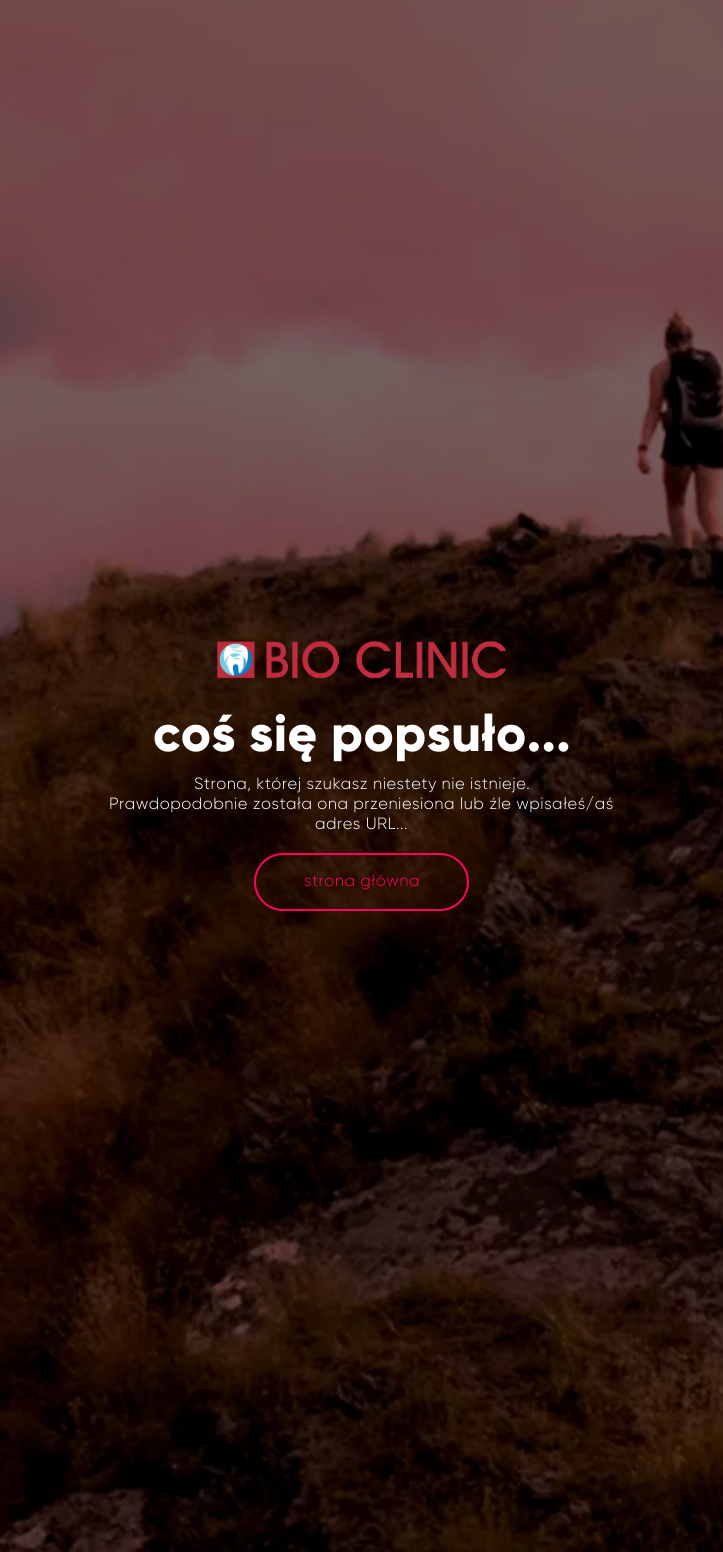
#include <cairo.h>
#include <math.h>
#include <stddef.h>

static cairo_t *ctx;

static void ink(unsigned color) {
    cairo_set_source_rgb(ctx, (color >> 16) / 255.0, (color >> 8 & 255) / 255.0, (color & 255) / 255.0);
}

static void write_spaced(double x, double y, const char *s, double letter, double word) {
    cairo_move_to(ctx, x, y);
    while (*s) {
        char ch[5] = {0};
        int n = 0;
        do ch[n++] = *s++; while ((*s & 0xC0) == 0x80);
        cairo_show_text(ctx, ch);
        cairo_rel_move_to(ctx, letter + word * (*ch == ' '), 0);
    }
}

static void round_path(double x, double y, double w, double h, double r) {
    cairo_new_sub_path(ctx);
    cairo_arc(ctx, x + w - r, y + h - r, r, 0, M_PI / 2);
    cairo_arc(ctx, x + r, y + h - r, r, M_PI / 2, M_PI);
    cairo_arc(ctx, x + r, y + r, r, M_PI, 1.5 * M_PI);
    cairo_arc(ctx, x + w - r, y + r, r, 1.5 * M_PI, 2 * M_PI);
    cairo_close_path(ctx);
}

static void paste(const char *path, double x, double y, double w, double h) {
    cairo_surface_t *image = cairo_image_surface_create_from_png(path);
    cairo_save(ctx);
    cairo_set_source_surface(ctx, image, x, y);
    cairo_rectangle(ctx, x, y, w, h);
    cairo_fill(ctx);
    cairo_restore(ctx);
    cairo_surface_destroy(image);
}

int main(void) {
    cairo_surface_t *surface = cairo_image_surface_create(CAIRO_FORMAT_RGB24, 723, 1552);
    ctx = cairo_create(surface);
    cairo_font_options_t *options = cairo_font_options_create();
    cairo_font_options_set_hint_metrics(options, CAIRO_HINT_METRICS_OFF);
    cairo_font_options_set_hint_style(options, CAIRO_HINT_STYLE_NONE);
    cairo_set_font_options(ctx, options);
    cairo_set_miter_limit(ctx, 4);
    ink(0xffffff);
    cairo_paint(ctx);
    paste("pic1.png", 0, 0, 723, 1552);
    paste("pic2.png", 216, 640, 290, 39);
    cairo_select_font_face(ctx, "Gilroy ExtraBold", CAIRO_FONT_SLANT_NORMAL, CAIRO_FONT_WEIGHT_NORMAL);
    cairo_set_font_size(ctx, 51.25);
    ink(0xffffff);
    write_spaced(153, 751, "coś się popsuło...", 0.5, 0);
    cairo_select_font_face(ctx, "Gilroy Light", CAIRO_FONT_SLANT_NORMAL, CAIRO_FONT_WEIGHT_NORMAL);
    cairo_set_font_size(ctx, 16.3);
    write_spaced(194, 789, "Strona, której szukasz niestety nie istnieje.", 0.5, 0);
    write_spaced(109, 809, "Prawdopodobnie została ona przeniesiona lub źle wpisałeś/aś", 0.5, 0);
    write_spaced(315, 829, "adres URL...", 0.5, 0);
    round_path(255, 854, 213, 56, 28);
    ink(0xff0260);
    cairo_stroke(ctx);
    write_spaced(304, 886, "strona główna", 0.5, 0);
    cairo_surface_write_to_png(surface, "screenshot.png");
    cairo_font_options_destroy(options);
    cairo_destroy(ctx);
    cairo_surface_destroy(surface);
    return 0;
}
